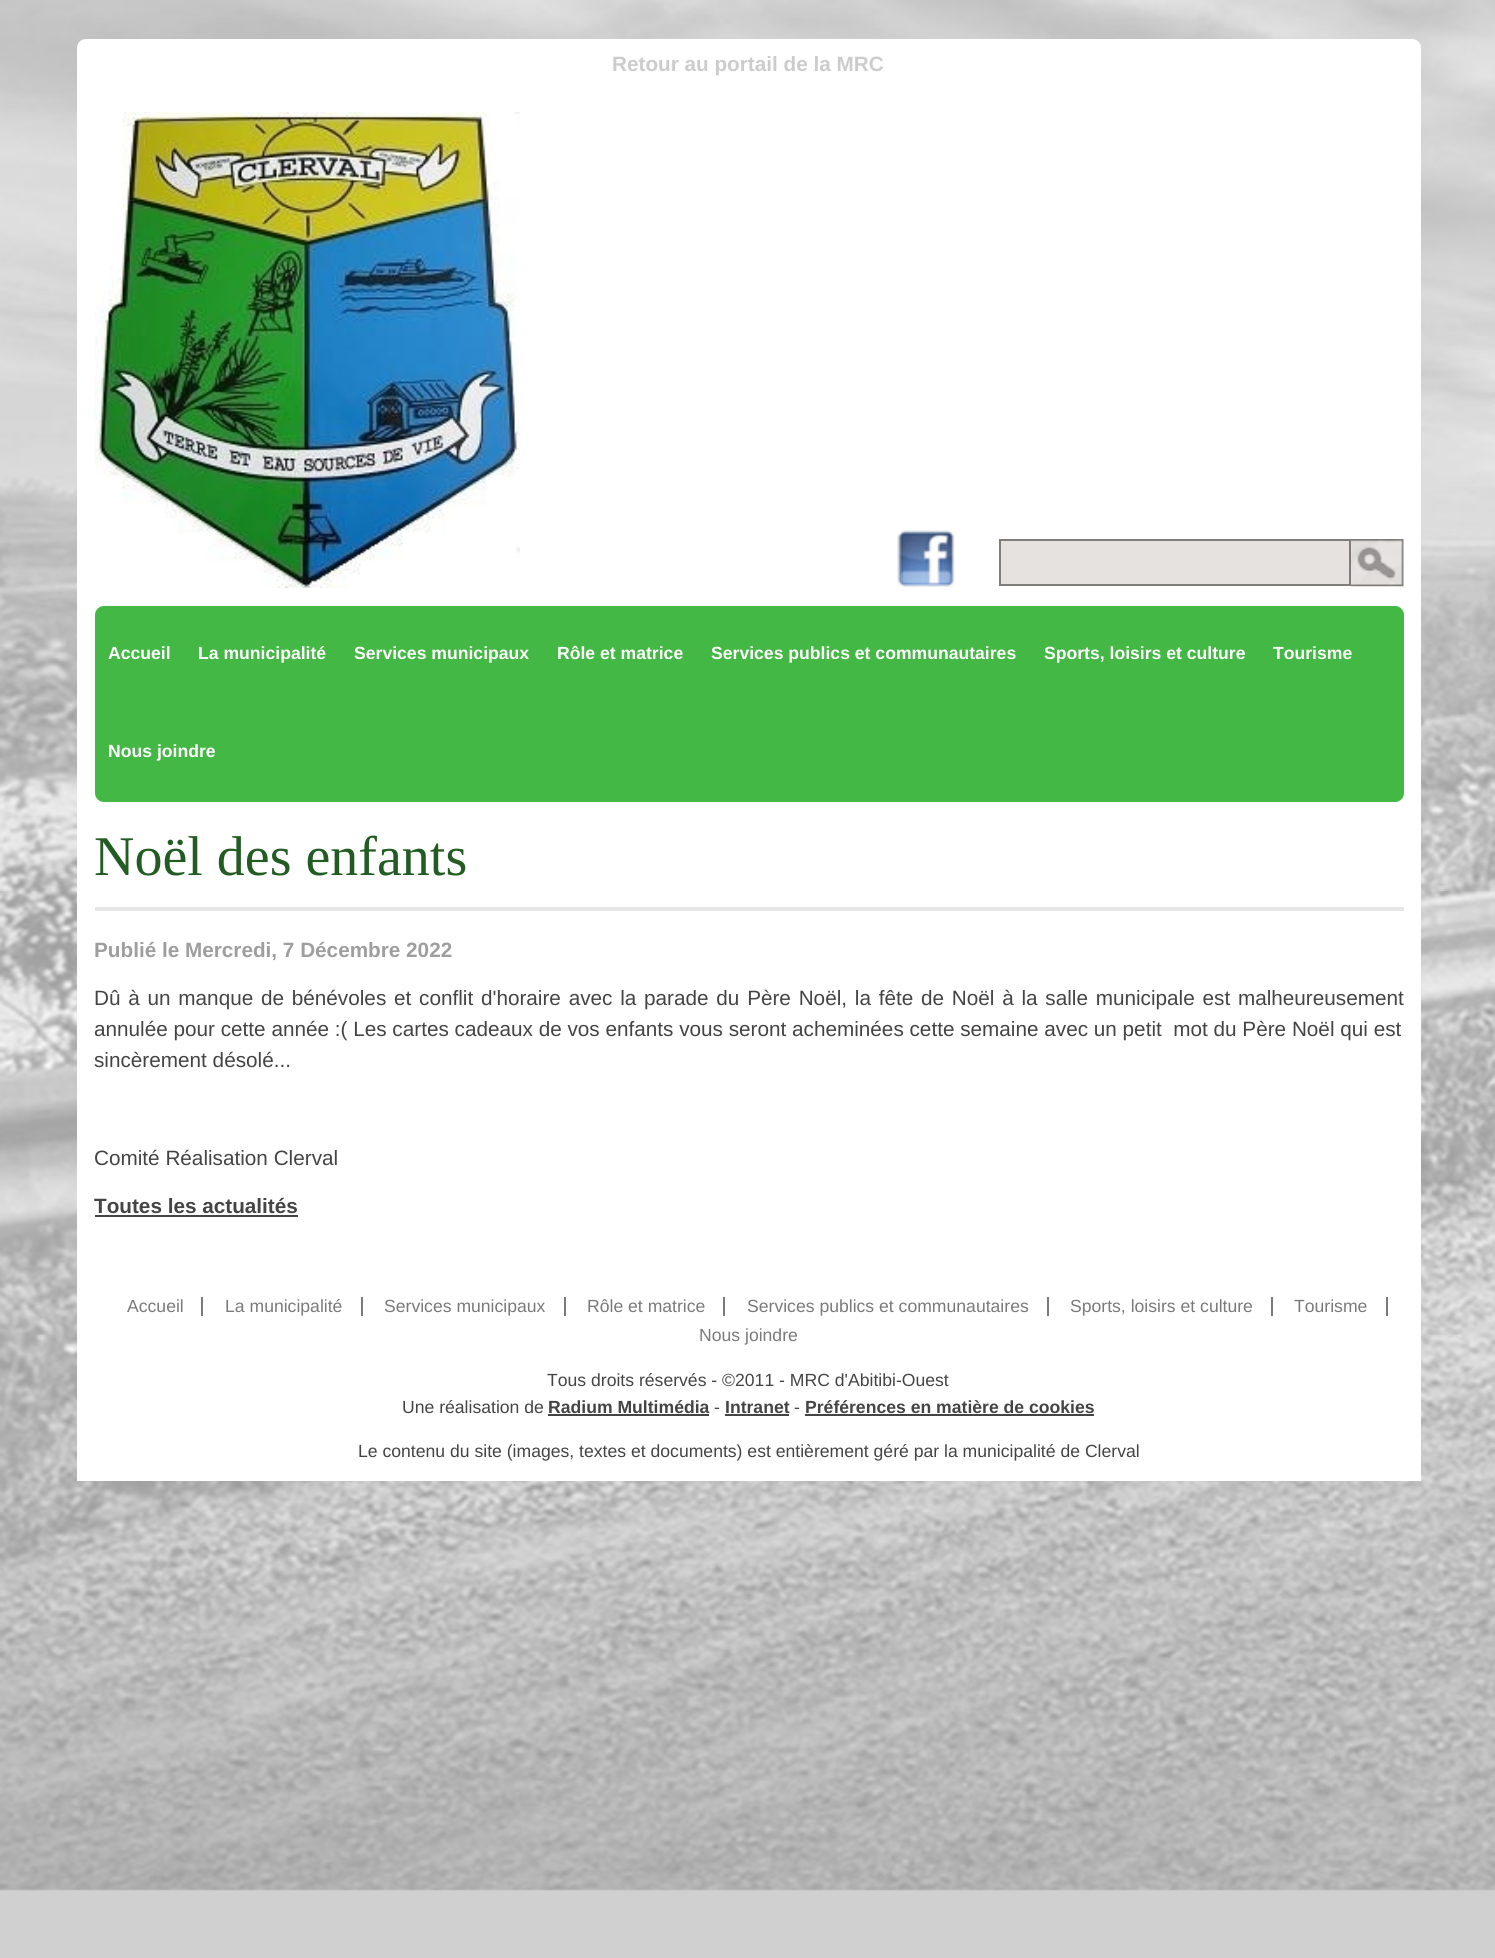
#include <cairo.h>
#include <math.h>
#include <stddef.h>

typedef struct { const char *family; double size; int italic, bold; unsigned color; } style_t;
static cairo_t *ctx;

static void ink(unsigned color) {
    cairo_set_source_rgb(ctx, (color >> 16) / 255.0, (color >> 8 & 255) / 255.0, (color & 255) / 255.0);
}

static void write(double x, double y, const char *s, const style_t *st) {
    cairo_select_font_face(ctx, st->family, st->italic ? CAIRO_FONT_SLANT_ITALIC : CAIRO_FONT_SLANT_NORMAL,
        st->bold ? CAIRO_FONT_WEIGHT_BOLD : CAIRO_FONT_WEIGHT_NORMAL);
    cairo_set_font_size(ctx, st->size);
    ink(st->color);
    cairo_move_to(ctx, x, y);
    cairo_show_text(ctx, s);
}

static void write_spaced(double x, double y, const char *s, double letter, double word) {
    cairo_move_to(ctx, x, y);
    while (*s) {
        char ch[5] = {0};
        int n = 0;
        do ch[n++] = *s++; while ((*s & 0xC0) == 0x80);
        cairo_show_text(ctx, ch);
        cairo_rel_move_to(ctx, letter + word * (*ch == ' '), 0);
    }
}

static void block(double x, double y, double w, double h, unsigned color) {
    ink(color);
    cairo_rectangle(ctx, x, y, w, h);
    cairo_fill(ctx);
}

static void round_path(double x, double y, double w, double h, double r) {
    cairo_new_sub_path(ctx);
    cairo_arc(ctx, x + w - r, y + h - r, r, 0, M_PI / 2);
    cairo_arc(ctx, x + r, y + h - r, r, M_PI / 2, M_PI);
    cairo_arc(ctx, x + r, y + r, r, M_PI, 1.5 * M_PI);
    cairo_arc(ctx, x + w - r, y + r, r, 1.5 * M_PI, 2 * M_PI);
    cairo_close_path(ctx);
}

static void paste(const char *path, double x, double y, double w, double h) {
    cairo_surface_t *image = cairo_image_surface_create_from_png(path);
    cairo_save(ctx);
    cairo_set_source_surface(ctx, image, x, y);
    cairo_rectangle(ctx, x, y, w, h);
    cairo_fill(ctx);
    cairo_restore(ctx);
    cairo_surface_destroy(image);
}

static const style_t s1 = {"Liberation Sans", 20.72, 0, 1, 0xcccccc};
static const style_t s2 = {"Liberation Sans", 17.6, 0, 1, 0xffffff};
static const style_t s3 = {"Liberation Serif", 56, 0, 0, 0x225c22};
static const style_t s4 = {"Liberation Sans", 20.72, 0, 1, 0x9e9e9e};
static const style_t s5 = {"Liberation Sans", 20.72, 0, 0, 0x444444};
static const style_t s6 = {"Liberation Sans", 20.72, 0, 1, 0x444444};
static const style_t s7 = {"Liberation Sans", 17.6, 0, 0, 0x7a7a7a};
static const style_t s8 = {"Liberation Sans", 17.6, 0, 0, 0x444444};
static const style_t s9 = {"Liberation Sans", 17.6, 0, 1, 0x444444};

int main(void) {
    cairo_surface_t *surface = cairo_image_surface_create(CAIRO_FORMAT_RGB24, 1495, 1958);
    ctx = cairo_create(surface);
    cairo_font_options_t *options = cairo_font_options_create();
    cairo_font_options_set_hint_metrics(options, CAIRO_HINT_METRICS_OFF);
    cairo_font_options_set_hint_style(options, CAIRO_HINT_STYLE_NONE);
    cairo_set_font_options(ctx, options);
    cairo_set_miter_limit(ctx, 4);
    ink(0xd0d0d0);
    cairo_paint(ctx);
    paste("pic1.png", 0, 0, 1495, 1891);
    ink(0xffffff);
    cairo_new_path(ctx);
    cairo_move_to(ctx, 86, 39);
    cairo_line_to(ctx, 1412, 39);
    cairo_curve_to(ctx, 1417, 39, 1421, 43, 1421, 48);
    cairo_line_to(ctx, 1421, 95);
    cairo_line_to(ctx, 77, 95);
    cairo_line_to(ctx, 77, 48);
    cairo_curve_to(ctx, 77, 43, 81, 39, 86, 39);
    cairo_close_path(ctx);
    cairo_fill(ctx);
    write(612, 71, "Retour au portail de la MRC", &s1);
    block(77, 95, 1344, 1386, 0xffffff);
    paste("pic2.png", 94, 112, 426, 476);
    paste("pic3.png", 897, 530, 58, 58);
    ink(0xe5e2e0);
    cairo_rectangle(ctx, 1000, 540, 350, 45);
    cairo_fill_preserve(ctx);
    ink(0x807e7b);
    cairo_stroke(ctx);
    paste("pic4.png", 1351, 539, 53, 48);
    ink(0x44b844);
    round_path(95, 606, 1309, 196, 9);
    cairo_fill(ctx);
    write(108, 659, "Accueil", &s2);
    write(198, 659, "La municipalité", &s2);
    write(354, 659, "Services municipaux", &s2);
    write(557, 659, "Rôle et matrice", &s2);
    write(711, 659, "Services publics et communautaires", &s2);
    write(1044, 659, "Sports, loisirs et culture", &s2);
    write(1273, 659, "Tourisme", &s2);
    write(108, 757, "Nous joindre", &s2);
    block(95, 907, 1309, 4, 0xe7e7e7);
    write(94, 875, "Noël des enfants", &s3);
    write(94, 957, "Publié le Mercredi, 7 Décembre 2022", &s4);
    cairo_select_font_face(ctx, "Liberation Sans", CAIRO_FONT_SLANT_NORMAL, CAIRO_FONT_WEIGHT_NORMAL);
    ink(0x444444);
    write_spaced(94, 1005, "Dû à un manque de bénévoles et conflit d'horaire avec la parade du Père Noël, la fête de Noël à la salle municipale est malheureusement", 0, 2);
    write(94, 1036, "annulée pour cette année :( Les cartes cadeaux de vos enfants vous seront acheminées cette semaine avec un petit  mot du Père Noël qui est", &s5);
    write(94, 1067, "sincèrement désolé...", &s5);
    write(94, 1165, "Comité Réalisation Clerval", &s5);
    write(94, 1213, "Toutes les actualités", &s6);
    block(95, 1215, 203, 2, 0x444444);
    write(127, 1312, "Accueil", &s7);
    block(201, 1297, 2, 19, 0x7a7a7a);
    write(225, 1312, "La municipalité", &s7);
    block(361, 1297, 2, 19, 0x7a7a7a);
    write(384, 1312, "Services municipaux", &s7);
    block(564, 1297, 2, 19, 0x7a7a7a);
    write(587, 1312, "Rôle et matrice", &s7);
    block(723, 1297, 2, 19, 0x7a7a7a);
    write(747, 1312, "Services publics et communautaires", &s7);
    block(1047, 1297, 2, 19, 0x7a7a7a);
    write(1070, 1312, "Sports, loisirs et culture", &s7);
    block(1271, 1297, 2, 19, 0x7a7a7a);
    write(1294, 1312, "Tourisme", &s7);
    block(1386, 1297, 2, 19, 0x7a7a7a);
    write(699, 1341, "Nous joindre", &s7);
    write(547, 1386, "Tous droits réservés - ©2011 - MRC d'Abitibi-Ouest", &s8);
    write(402, 1413, "Une réalisation de", &s8);
    write(548, 1413, "Radium Multimédia", &s9);
    block(548, 1414, 161, 2, 0x444444);
    write(714, 1413, "-", &s8);
    write(725, 1413, "Intranet", &s9);
    block(725, 1414, 64, 2, 0x444444);
    write(794, 1413, "-", &s8);
    write(805, 1413, "Préférences en matière de cookies", &s9);
    block(805, 1414, 289, 2, 0x444444);
    write(358, 1457, "Le contenu du site (images, textes et documents) est entièrement géré par la municipalité de Clerval", &s8);
    cairo_surface_write_to_png(surface, "screenshot.png");
    cairo_font_options_destroy(options);
    cairo_destroy(ctx);
    cairo_surface_destroy(surface);
    return 0;
}
